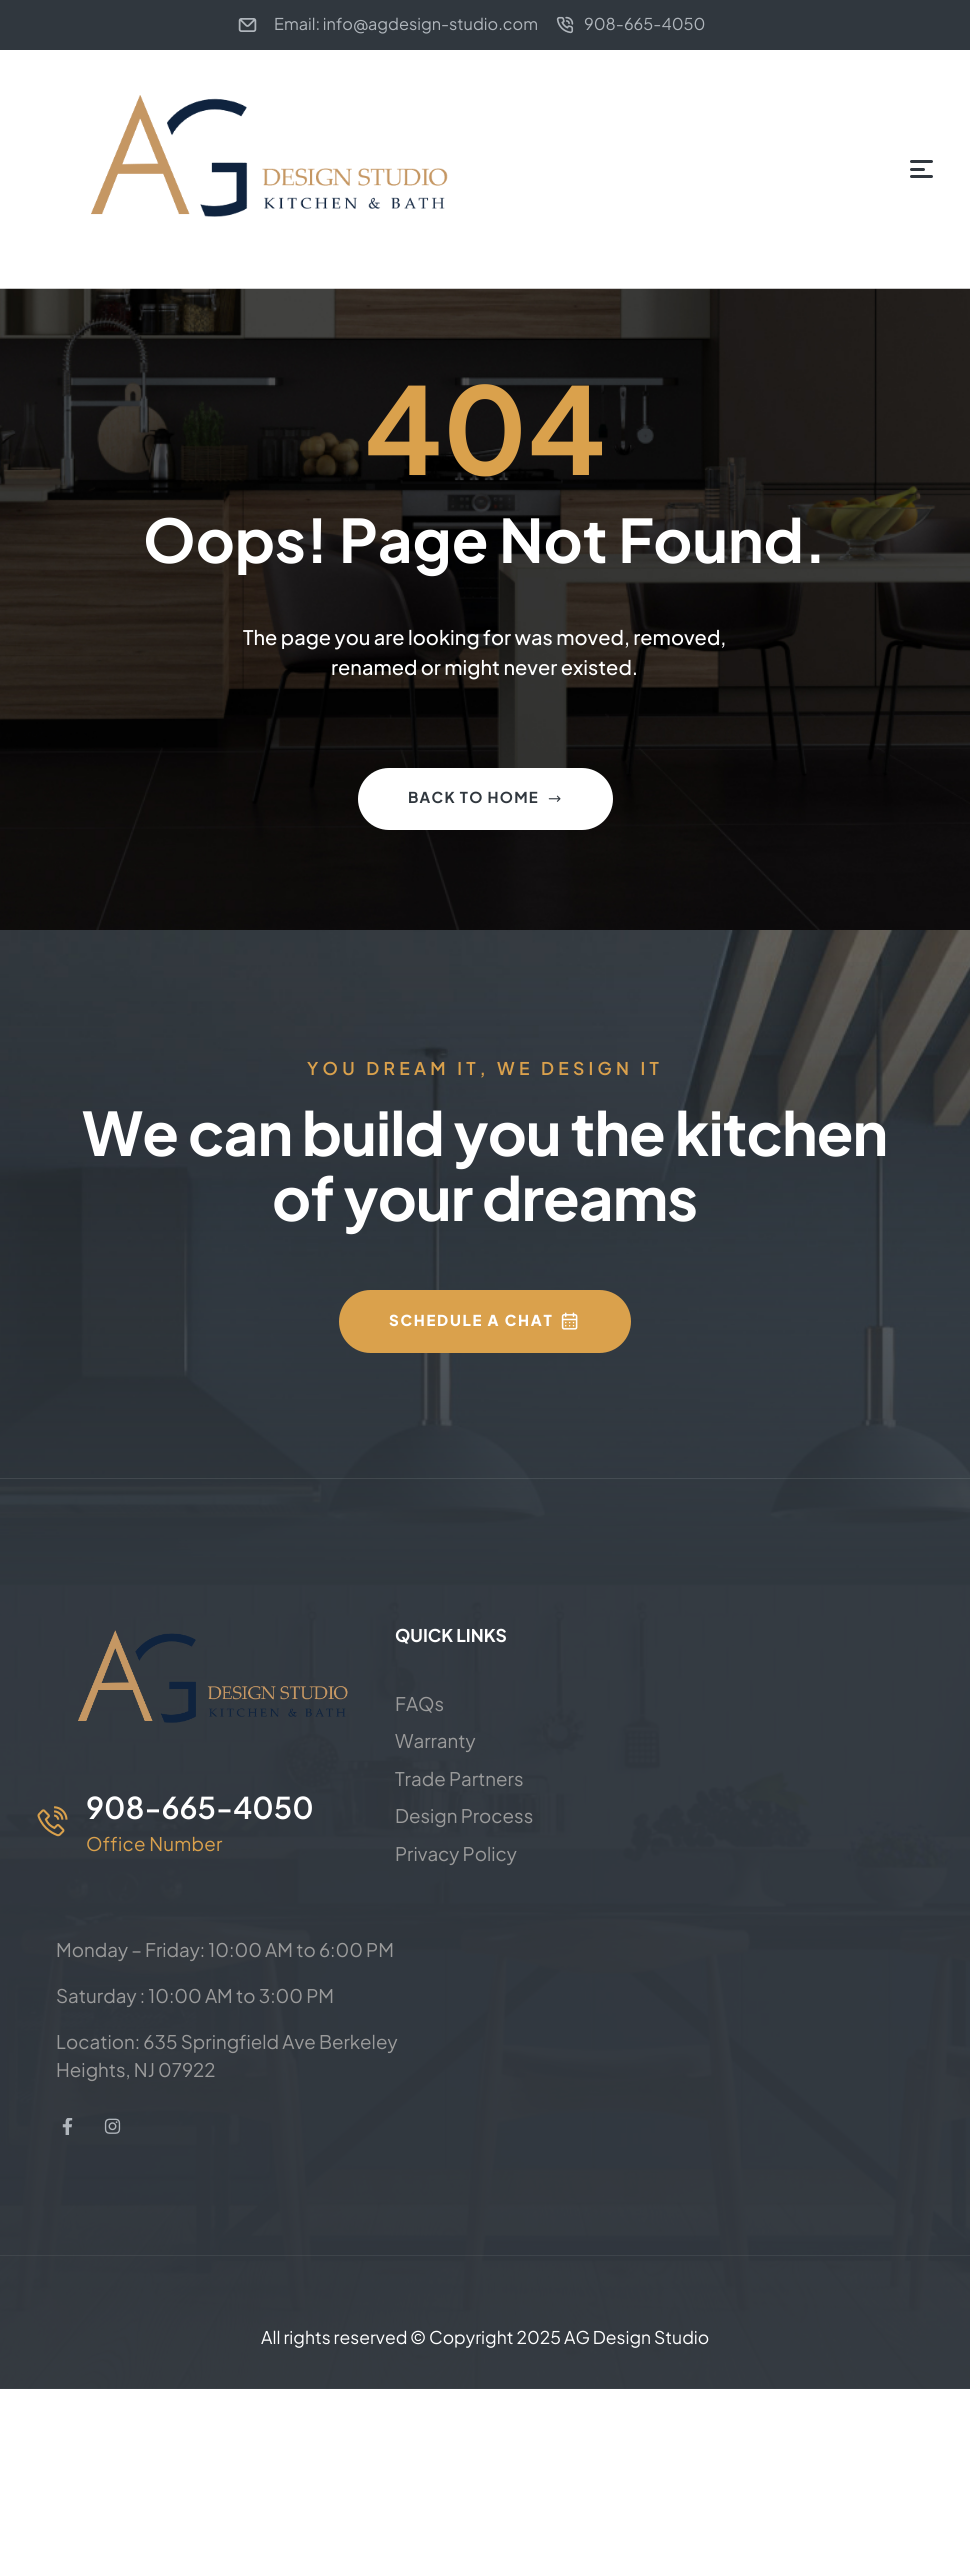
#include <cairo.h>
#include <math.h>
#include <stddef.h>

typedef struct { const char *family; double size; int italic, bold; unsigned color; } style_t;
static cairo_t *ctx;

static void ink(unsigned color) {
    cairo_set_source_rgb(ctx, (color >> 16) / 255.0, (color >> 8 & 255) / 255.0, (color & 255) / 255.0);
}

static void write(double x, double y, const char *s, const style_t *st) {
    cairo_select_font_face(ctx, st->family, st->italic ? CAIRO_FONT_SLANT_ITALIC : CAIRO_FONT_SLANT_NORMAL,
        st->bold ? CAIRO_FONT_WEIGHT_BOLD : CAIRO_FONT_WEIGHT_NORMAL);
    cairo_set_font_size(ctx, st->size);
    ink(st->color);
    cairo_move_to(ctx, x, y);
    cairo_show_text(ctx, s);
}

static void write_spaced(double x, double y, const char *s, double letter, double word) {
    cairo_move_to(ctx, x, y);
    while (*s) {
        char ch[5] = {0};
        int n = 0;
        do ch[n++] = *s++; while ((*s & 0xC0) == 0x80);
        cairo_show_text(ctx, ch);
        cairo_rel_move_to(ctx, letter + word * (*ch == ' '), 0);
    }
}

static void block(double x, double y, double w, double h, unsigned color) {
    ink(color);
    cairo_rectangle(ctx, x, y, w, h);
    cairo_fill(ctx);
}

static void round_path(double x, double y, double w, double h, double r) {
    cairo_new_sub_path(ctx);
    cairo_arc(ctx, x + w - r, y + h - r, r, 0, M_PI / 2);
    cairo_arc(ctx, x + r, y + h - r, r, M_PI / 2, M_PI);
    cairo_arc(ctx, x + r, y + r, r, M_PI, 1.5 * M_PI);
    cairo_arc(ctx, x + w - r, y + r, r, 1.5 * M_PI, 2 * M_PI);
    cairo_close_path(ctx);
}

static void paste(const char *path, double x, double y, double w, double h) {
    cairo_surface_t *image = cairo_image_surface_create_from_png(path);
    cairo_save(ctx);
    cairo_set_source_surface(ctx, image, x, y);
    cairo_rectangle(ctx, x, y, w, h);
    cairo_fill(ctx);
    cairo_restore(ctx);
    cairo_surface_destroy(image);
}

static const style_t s1 = {"Plus Jakarta Sans", 16.25, 0, 0, 0xb0b6bc};
static const style_t s2 = {"Plus Jakarta Sans", 120, 0, 1, 0xdaa14c};
static const style_t s3 = {"Plus Jakarta Sans", 60, 0, 1, 0xffffff};
static const style_t s4 = {"Plus Jakarta Sans Medium", 20, 0, 0, 0xffffff};
static const style_t s5 = {"Plus Jakarta Sans SemiBold", 30, 0, 0, 0xffffff};
static const style_t s6 = {"Plus Jakarta Sans", 17.5, 0, 1, 0xffffff};
static const style_t s7 = {"Plus Jakarta Sans", 18.75, 0, 0, 0x9b9b9b};
static const style_t s8 = {"Plus Jakarta Sans", 17.5, 0, 0, 0xffffff};

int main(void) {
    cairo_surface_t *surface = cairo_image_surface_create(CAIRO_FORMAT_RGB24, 970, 2567);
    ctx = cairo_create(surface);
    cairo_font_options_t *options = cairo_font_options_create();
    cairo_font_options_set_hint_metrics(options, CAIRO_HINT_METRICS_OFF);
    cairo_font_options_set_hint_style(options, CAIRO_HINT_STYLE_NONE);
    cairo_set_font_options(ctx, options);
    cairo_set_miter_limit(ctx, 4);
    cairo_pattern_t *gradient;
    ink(0xffffff);
    cairo_paint(ctx);
    block(0, 0, 970, 50, 0x30373e);
    paste("pic1.png", 238, 18, 19, 14);
    write(274, 30, "Email: info@agdesign-studio.com", &s1);
    paste("pic2.png", 556, 16, 18, 18);
    write(584, 30, "908-665-4050", &s1);
    paste("pic3.png", 91, 95, 357, 122);
    ink(0x30373e);
    round_path(910, 160, 23, 3, 1.5);
    cairo_fill(ctx);
    round_path(910, 168, 15, 3, 1.5);
    cairo_fill(ctx);
    round_path(910, 175, 23, 3, 1.5);
    cairo_fill(ctx);
    paste("pic4.png", 0, 288, 970, 642);
    write(364, 475, "404", &s2);
    write(143, 563, "Oops! Page Not Found.", &s3);
    write(243, 645, "The page you are looking for was moved, removed,", &s4);
    write(331, 675, "renamed or might never existed.", &s4);
    round_path(358, 768, 255, 62, 31);
    cairo_fill(ctx);
    cairo_select_font_face(ctx, "Plus Jakarta Sans", CAIRO_FONT_SLANT_NORMAL, CAIRO_FONT_WEIGHT_BOLD);
    cairo_set_font_size(ctx, 15);
    ink(0x30373e);
    write_spaced(408, 803, "BACK TO HOME", 1.25, 0);
    paste("pic5.png", 548, 795, 13, 7);
    paste("pic6.png", 0, 930, 970, 1459);
    gradient = cairo_pattern_create_linear(485, 2389, 485, 930);
    cairo_pattern_add_color_stop_rgba(gradient, 0.55, 0.188, 0.216, 0.243, 0.93);
    cairo_pattern_add_color_stop_rgba(gradient, 1, 0.188, 0.216, 0.243, 0);
    cairo_set_source(ctx, gradient);
    cairo_pattern_destroy(gradient);
    cairo_rectangle(ctx, 0, 962, 970, 1427);
    cairo_fill(ctx);
    cairo_select_font_face(ctx, "Plus Jakarta Sans SemiBold", CAIRO_FONT_SLANT_NORMAL, CAIRO_FONT_WEIGHT_NORMAL);
    cairo_set_font_size(ctx, 17.5);
    ink(0xdaa14c);
    write_spaced(307, 1075, "YOU DREAM IT, WE DESIGN IT", 4.25, 0);
    cairo_select_font_face(ctx, "Plus Jakarta Sans", CAIRO_FONT_SLANT_NORMAL, CAIRO_FONT_WEIGHT_BOLD);
    cairo_set_font_size(ctx, 60);
    ink(0xffffff);
    write_spaced(82, 1156, "We can build you the kitchen", -0.9, 0);
    write_spaced(272, 1221, "of your dreams", -0.9, 0);
    ink(0xdaa14c);
    round_path(339, 1290, 292, 63, 31.5);
    cairo_fill(ctx);
    cairo_select_font_face(ctx, "Plus Jakarta Sans ExtraBold", CAIRO_FONT_SLANT_NORMAL, CAIRO_FONT_WEIGHT_NORMAL);
    cairo_set_font_size(ctx, 15);
    ink(0xffffff);
    write_spaced(389, 1326, "SCHEDULE A CHAT", 1.75, 0);
    paste("pic7.png", 561, 1312, 17, 18);
    cairo_set_source_rgba(ctx, 1, 1, 1, 0.1);
    cairo_rectangle(ctx, 0, 1478, 970, 1);
    cairo_fill(ctx);
    paste("pic8.png", 78, 1630, 270, 93);
    paste("pic9.png", 37, 1806, 31, 31);
    write(86, 1819, "908-665-4050", &s5);
    cairo_select_font_face(ctx, "Plus Jakarta Sans", CAIRO_FONT_SLANT_NORMAL, CAIRO_FONT_WEIGHT_NORMAL);
    cairo_set_font_size(ctx, 18.75);
    ink(0xdaa14c);
    write_spaced(86, 1851, "Office Number", 0.25, 0);
    write(395, 1642, "QUICK LINKS", &s6);
    write(395, 1711, "FAQs", &s7);
    write(395, 1748, "Warranty", &s7);
    write(395, 1786, "Trade Partners", &s7);
    write(395, 1823, "Design Process", &s7);
    write(395, 1861, "Privacy Policy", &s7);
    write(56, 1957, "Monday – Friday: 10:00 AM to 6:00 PM", &s7);
    write(56, 2003, "Saturday : 10:00 AM to 3:00 PM", &s7);
    write(56, 2049, "Location: 635 Springfield Ave Berkeley", &s7);
    write(56, 2077, "Heights, NJ 07922", &s7);
    paste("pic10.png", 62, 2118, 11, 17);
    paste("pic11.png", 104, 2118, 17, 16);
    cairo_set_source_rgba(ctx, 0.769, 0.769, 0.769, 0.1);
    cairo_rectangle(ctx, 0, 2255, 970, 1);
    cairo_fill(ctx);
    write(261, 2344, "All rights reserved © Copyright 2025 AG Design Studio", &s8);
    cairo_surface_write_to_png(surface, "screenshot.png");
    cairo_font_options_destroy(options);
    cairo_destroy(ctx);
    cairo_surface_destroy(surface);
    return 0;
}
